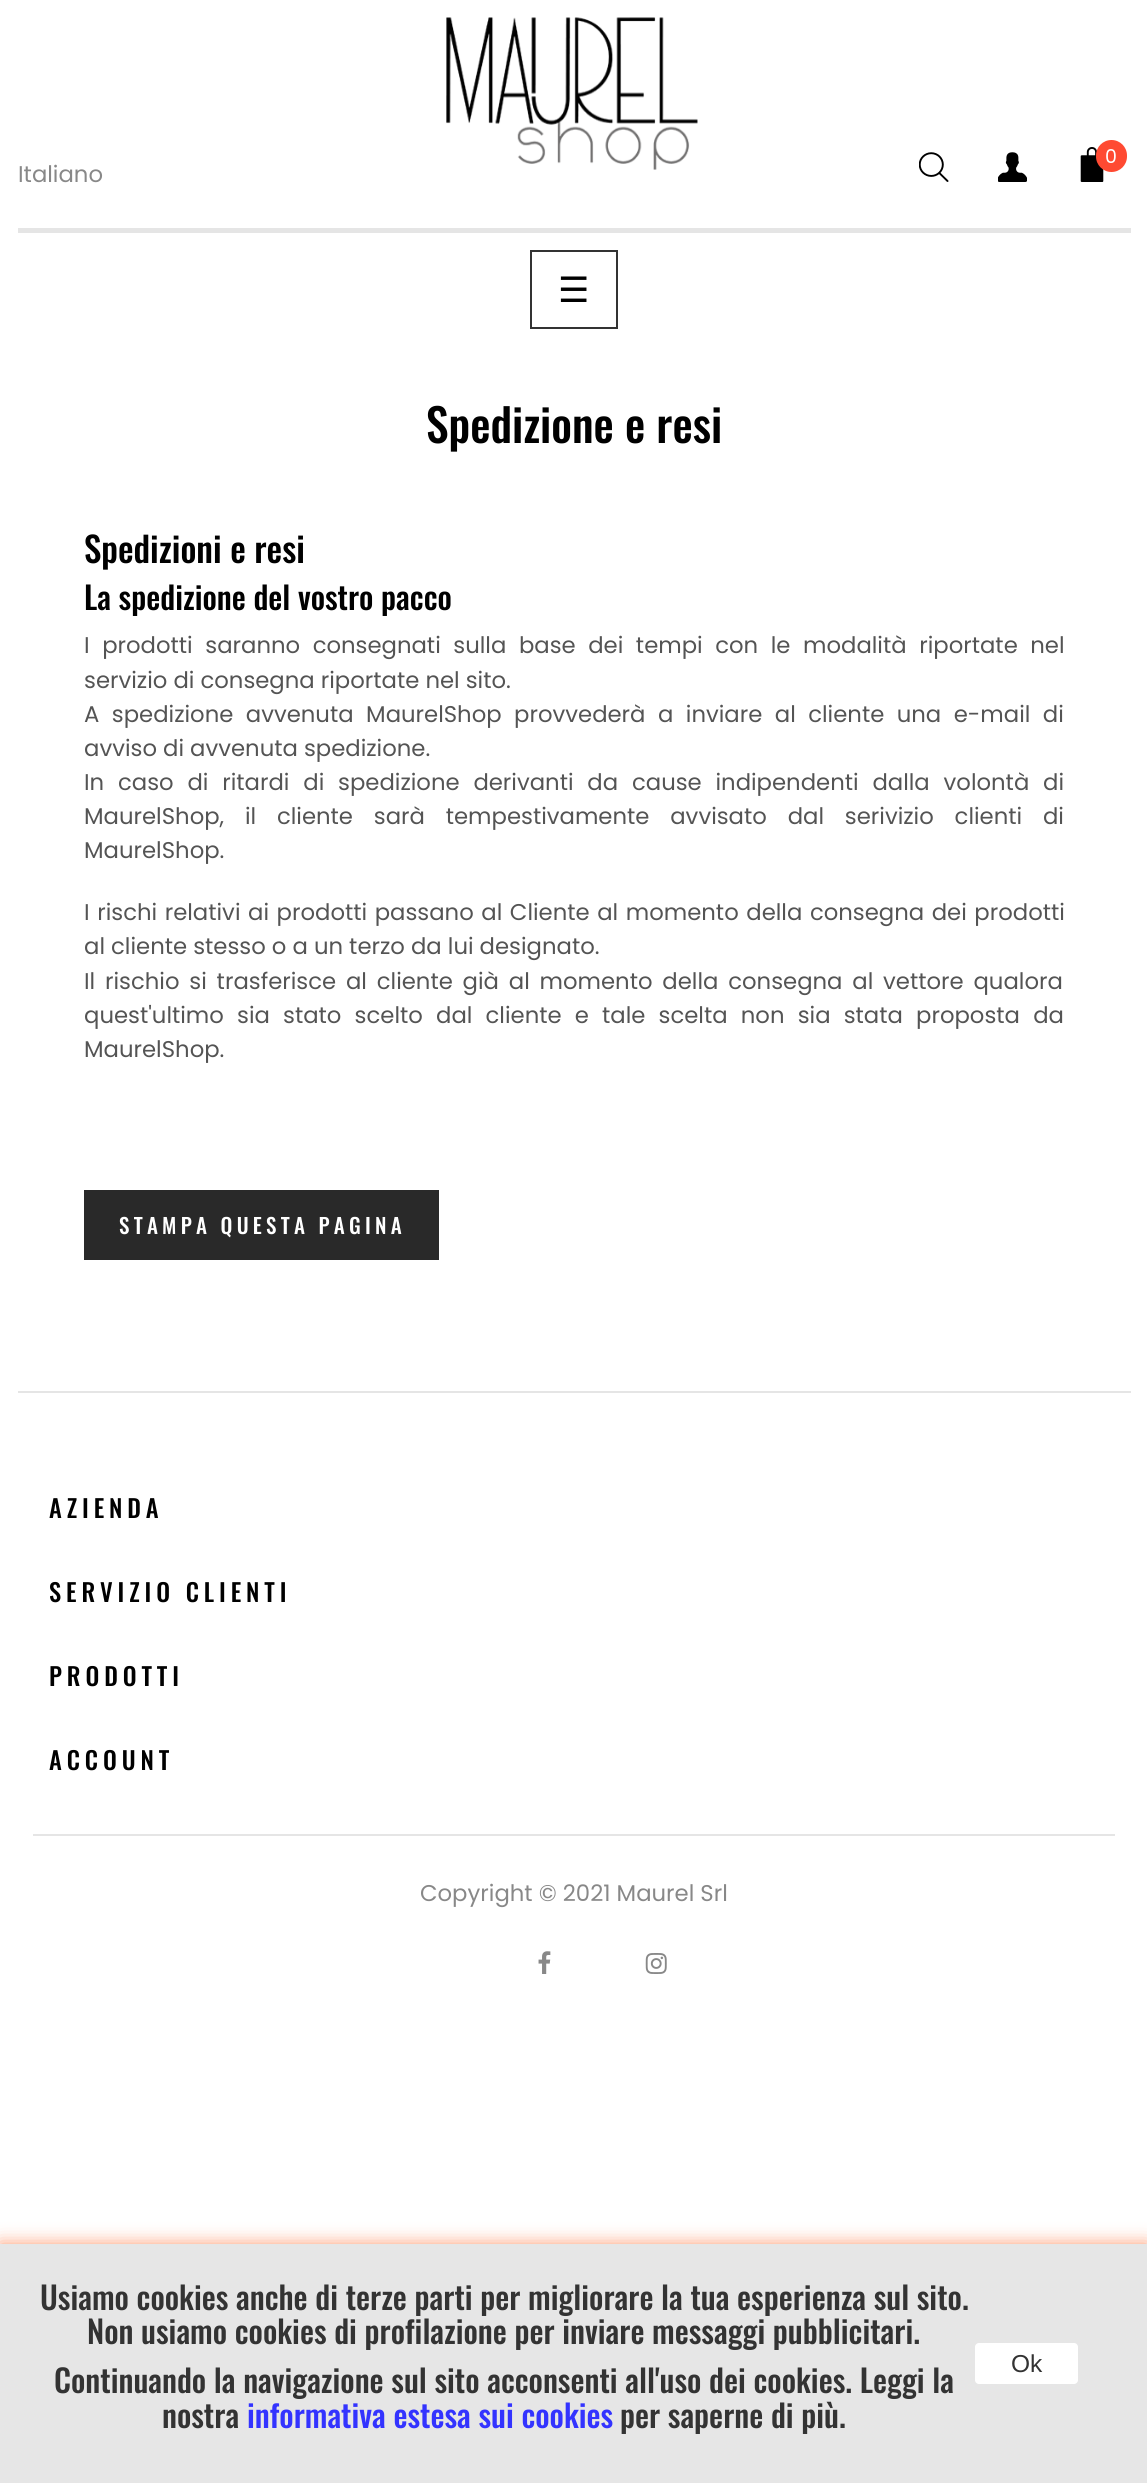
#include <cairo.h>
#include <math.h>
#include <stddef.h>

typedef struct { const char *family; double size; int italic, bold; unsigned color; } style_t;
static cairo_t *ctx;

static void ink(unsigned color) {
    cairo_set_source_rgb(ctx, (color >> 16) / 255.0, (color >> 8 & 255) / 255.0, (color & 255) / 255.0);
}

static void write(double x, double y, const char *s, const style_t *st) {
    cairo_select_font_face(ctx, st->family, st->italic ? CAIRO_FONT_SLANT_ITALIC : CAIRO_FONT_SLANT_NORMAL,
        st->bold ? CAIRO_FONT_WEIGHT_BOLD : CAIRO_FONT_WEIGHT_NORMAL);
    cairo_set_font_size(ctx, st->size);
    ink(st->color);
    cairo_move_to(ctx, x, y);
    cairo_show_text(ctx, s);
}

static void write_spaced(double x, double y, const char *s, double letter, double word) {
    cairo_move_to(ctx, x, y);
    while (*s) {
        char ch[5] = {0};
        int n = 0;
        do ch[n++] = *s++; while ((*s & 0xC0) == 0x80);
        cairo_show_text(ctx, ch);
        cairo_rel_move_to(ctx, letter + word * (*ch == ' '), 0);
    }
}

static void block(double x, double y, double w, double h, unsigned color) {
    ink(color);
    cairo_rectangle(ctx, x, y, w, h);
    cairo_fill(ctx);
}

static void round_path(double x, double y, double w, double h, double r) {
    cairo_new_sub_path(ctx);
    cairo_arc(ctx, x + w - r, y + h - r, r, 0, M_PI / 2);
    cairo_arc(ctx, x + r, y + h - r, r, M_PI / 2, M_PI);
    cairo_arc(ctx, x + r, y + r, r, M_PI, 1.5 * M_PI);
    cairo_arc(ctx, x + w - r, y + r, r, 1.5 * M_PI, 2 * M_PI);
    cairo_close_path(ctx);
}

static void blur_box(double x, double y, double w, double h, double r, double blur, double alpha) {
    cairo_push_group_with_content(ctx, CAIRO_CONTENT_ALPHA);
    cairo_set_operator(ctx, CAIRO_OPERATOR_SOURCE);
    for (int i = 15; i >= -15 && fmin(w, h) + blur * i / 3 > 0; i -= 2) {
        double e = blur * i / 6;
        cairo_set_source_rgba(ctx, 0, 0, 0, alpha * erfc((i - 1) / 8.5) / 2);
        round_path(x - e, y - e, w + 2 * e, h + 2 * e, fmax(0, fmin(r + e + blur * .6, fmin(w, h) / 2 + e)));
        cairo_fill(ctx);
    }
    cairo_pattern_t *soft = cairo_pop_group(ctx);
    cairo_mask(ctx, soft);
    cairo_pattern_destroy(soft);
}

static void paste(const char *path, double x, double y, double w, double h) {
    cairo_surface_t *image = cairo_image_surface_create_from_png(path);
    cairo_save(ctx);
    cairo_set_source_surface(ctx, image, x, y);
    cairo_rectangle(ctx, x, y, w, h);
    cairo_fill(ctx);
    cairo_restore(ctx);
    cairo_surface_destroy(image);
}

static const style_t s1 = {"Poppins", 22.75, 0, 0, 0x888888};
static const style_t s2 = {"Poppins", 19, 0, 0, 0xffffff};
static const style_t s3 = {"DejaVu Sans", 35, 0, 0, 0x000000};
static const style_t s4 = {"Oswald Medium", 45.5, 0, 0, 0x000000};
static const style_t s5 = {"Oswald Medium", 35, 0, 0, 0x000000};
static const style_t s6 = {"Oswald Medium", 31.5, 0, 0, 0x000000};
static const style_t s7 = {"Poppins", 22.75, 0, 0, 0x545454};
static const style_t s8 = {"Oswald Medium", 31.5, 0, 0, 0x333333};
static const style_t s9 = {"Oswald Medium", 31.5, 0, 0, 0x3333ff};
static const style_t s10 = {"Liberation Sans", 24.5, 0, 0, 0x333333};

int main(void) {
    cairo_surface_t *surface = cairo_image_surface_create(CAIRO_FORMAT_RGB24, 1147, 2483);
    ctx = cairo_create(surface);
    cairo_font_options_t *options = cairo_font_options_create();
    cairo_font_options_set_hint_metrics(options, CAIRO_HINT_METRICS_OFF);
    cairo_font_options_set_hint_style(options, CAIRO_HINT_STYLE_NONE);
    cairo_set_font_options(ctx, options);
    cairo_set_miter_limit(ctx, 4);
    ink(0xffffff);
    cairo_paint(ctx);
    paste("pic1.png", 446, 17, 252, 153);
    write(18, 182, "Italiano", &s1);
    paste("pic2.png", 919, 152, 30, 30);
    paste("pic3.png", 998, 152, 29, 30);
    paste("pic4.png", 1080, 147, 24, 35);
    ink(0xff4a32);
    round_path(1096, 140, 31, 32, 15.5);
    cairo_fill(ctx);
    write(1105, 163, "0", &s2);
    block(18, 228, 1113, 5, 0xe5e5e5);
    cairo_rectangle(ctx, 531, 251, 86, 77);
    ink(0x333333);
    cairo_stroke(ctx);
    write(558, 302, "☰", &s3);
    write(426, 443, "Spedizione e resi", &s4);
    write(84, 563, "Spedizioni e resi", &s5);
    write(84, 610, "La spedizione del vostro pacco", &s6);
    cairo_select_font_face(ctx, "Poppins", CAIRO_FONT_SLANT_NORMAL, CAIRO_FONT_WEIGHT_NORMAL);
    cairo_set_font_size(ctx, 22.75);
    ink(0x545454);
    write_spaced(84, 653, "I prodotti saranno consegnati sulla base dei tempi con le modalità riportate nel", 0, 6.5);
    write(84, 688, "servizio di consegna riportate nel sito.", &s7);
    write_spaced(84, 722, "A spedizione avvenuta MaurelShop provvederà a inviare al cliente una e-mail di", 0, 6.4);
    write(84, 756, "avviso di avvenuta spedizione.", &s7);
    write_spaced(84, 790, "In caso di ritardi di spedizione derivanti da cause indipendenti dalla volontà di", 0, 7.75);
    write_spaced(84, 824, "MaurelShop, il cliente sarà tempestivamente avvisato dal serivizio clienti di", 0, 14.75);
    write(84, 858, "MaurelShop.", &s7);
    write_spaced(84, 920, "I rischi relativi ai prodotti passano al Cliente al momento della consegna dei prodotti", 0, 1.5);
    write(84, 954, "al cliente stesso o a un terzo da lui designato.", &s7);
    write_spaced(84, 989, "Il rischio si trasferisce al cliente già al momento della consegna al vettore qualora", 0, 3.75);
    write_spaced(84, 1023, "quest'ultimo sia stato scelto dal cliente e tale scelta non sia stata proposta da", 0, 7.1);
    write(84, 1057, "MaurelShop.", &s7);
    block(84, 1190, 355, 70, 0x292929);
    cairo_select_font_face(ctx, "Oswald Medium", CAIRO_FONT_SLANT_NORMAL, CAIRO_FONT_WEIGHT_NORMAL);
    cairo_set_font_size(ctx, 21);
    ink(0xffffff);
    write_spaced(119, 1234, "STAMPA QUESTA PAGINA", 4.25, 0);
    block(18, 1391, 1113, 2, 0xe5e5e5);
    cairo_set_font_size(ctx, 24.5);
    ink(0x000000);
    write_spaced(49, 1518, "AZIENDA", 4.9, 0);
    write_spaced(49, 1602, "SERVIZIO CLIENTI", 4.9, 0);
    write_spaced(49, 1686, "PRODOTTI", 4.9, 0);
    write_spaced(49, 1770, "ACCOUNT", 4.9, 0);
    block(33, 1834, 1082, 2, 0xe5e5e5);
    write(420, 1901, "Copyright © 2021 Maurel Srl", &s1);
    paste("pic5.png", 538, 1951, 13, 23);
    paste("pic6.png", 645, 1953, 22, 21);
    ink(0xff996e);
    blur_box(0, 2244, 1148, 239, 0, 9, 1);
    block(0, 2244, 1147, 239, 0xe6e6e6);
    write(40, 2310, "Usiamo cookies anche di terze parti per migliorare la tua esperienza sul sito.", &s8);
    write(87, 2344, "Non usiamo cookies di profilazione per inviare messaggi pubblicitari.", &s8);
    write(54, 2393, "Continuando la navigazione sul sito acconsenti all'uso dei cookies. Leggi la", &s8);
    write(162, 2428, "nostra", &s8);
    write(247, 2428, "informativa estesa sui cookies", &s9);
    write(620, 2428, "per saperne di più.", &s8);
    ink(0xffffff);
    round_path(975, 2343, 103, 41, 4);
    cairo_fill(ctx);
    write(1011, 2372, "Ok", &s10);
    cairo_surface_write_to_png(surface, "screenshot.png");
    cairo_font_options_destroy(options);
    cairo_destroy(ctx);
    cairo_surface_destroy(surface);
    return 0;
}
